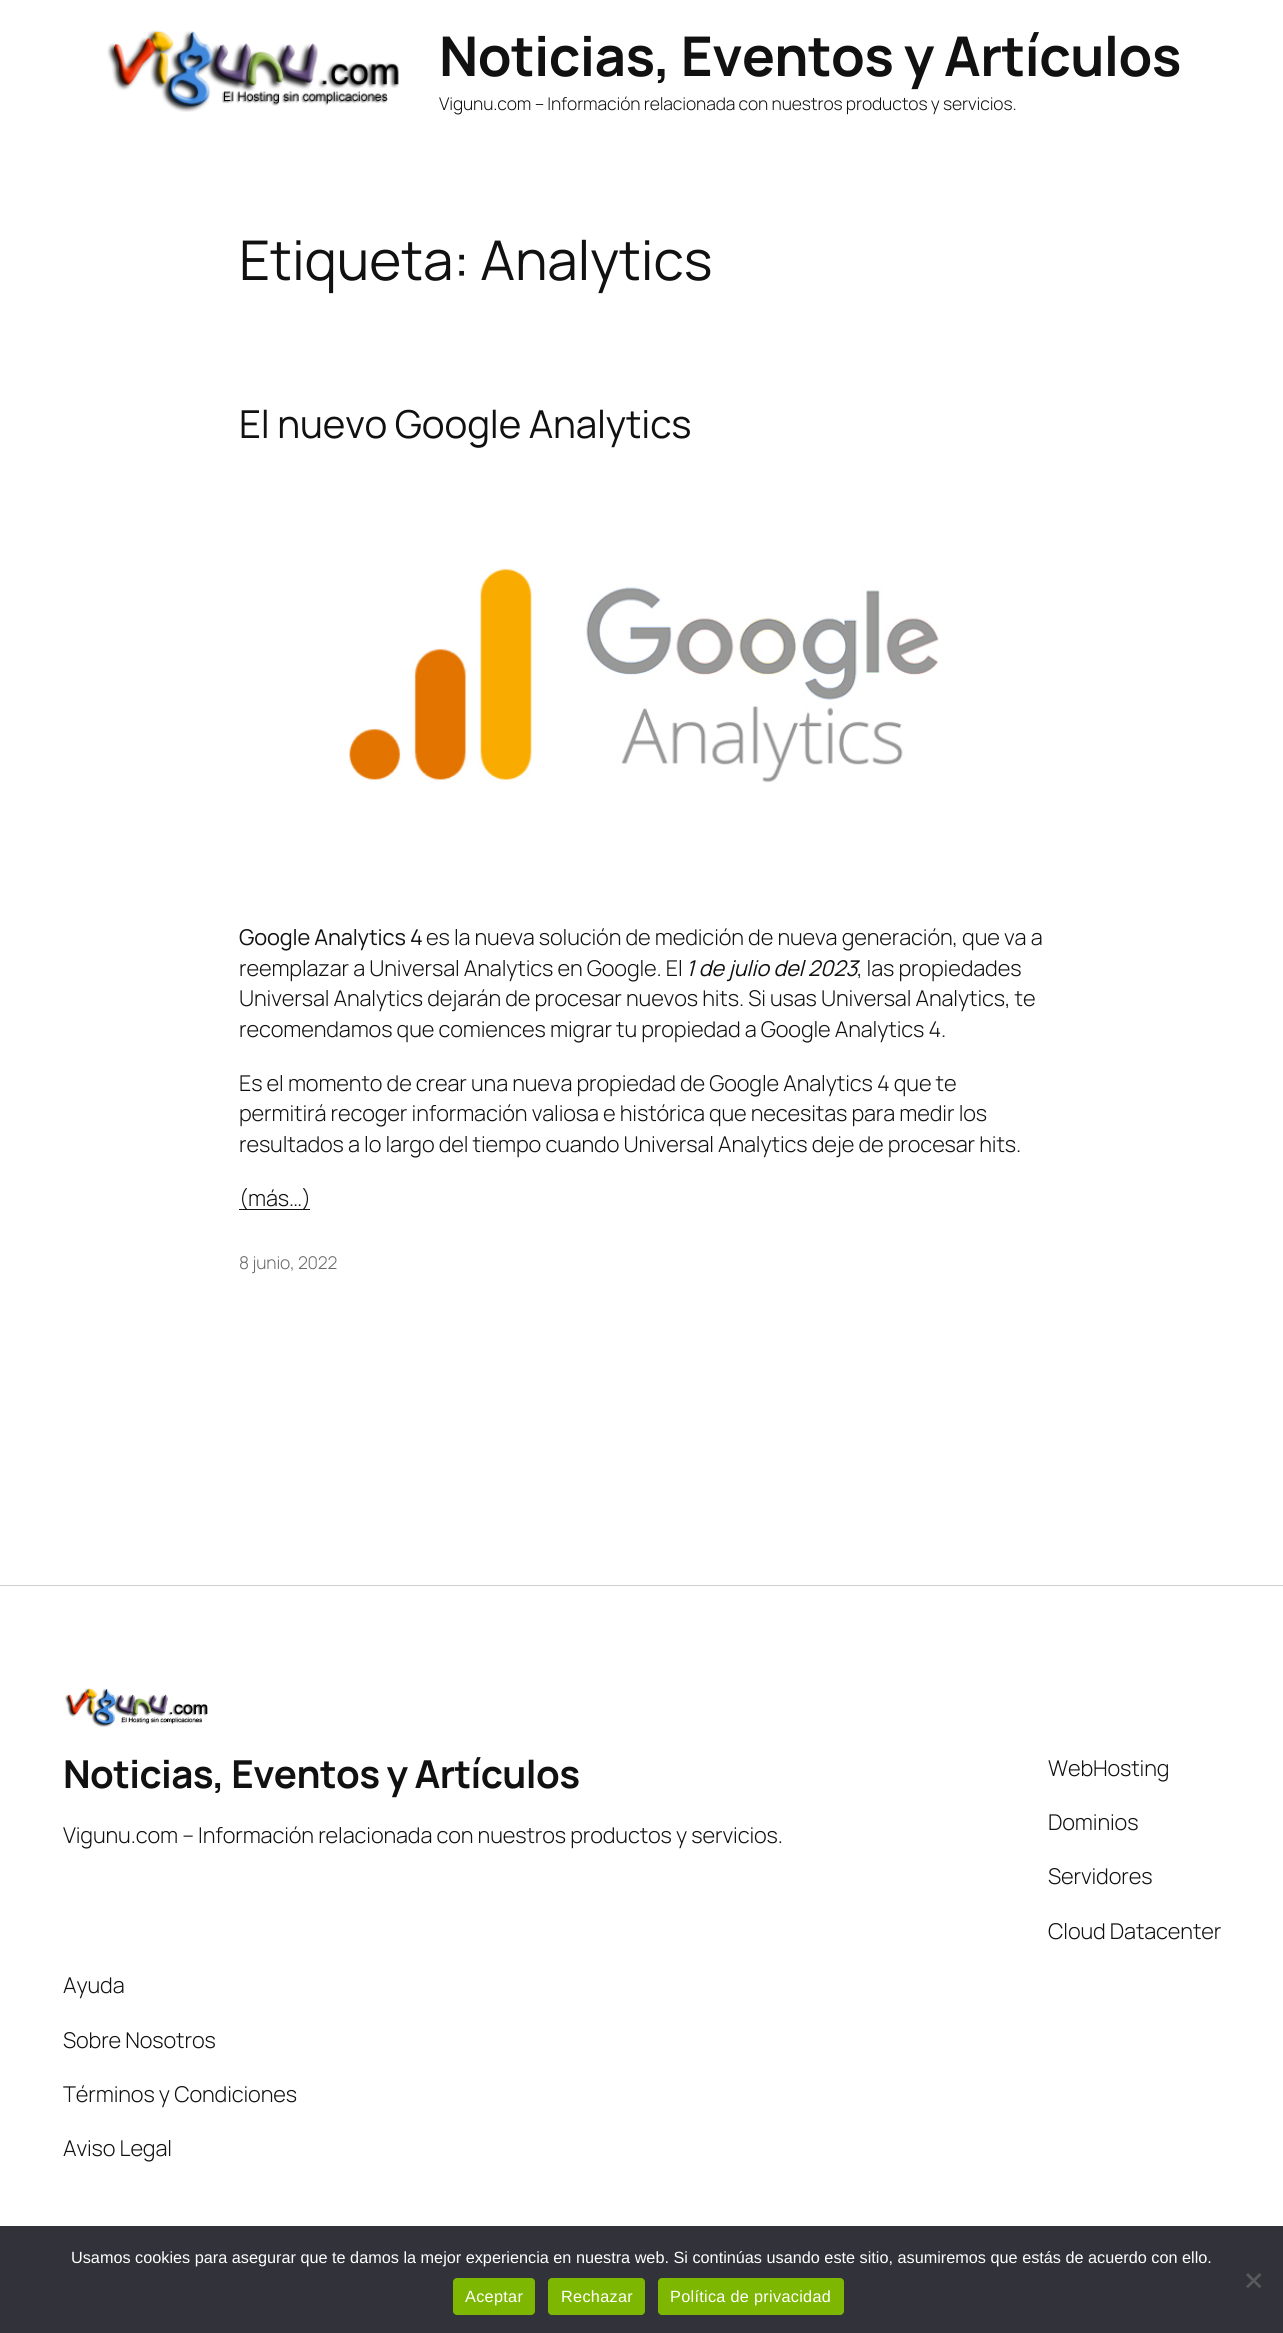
#include <cairo.h>
#include <math.h>
#include <stddef.h>

typedef struct { const char *family; double size; int italic, bold; unsigned color; } style_t;
static cairo_t *ctx;

static void ink(unsigned color) {
    cairo_set_source_rgb(ctx, (color >> 16) / 255.0, (color >> 8 & 255) / 255.0, (color & 255) / 255.0);
}

static void write(double x, double y, const char *s, const style_t *st) {
    cairo_select_font_face(ctx, st->family, st->italic ? CAIRO_FONT_SLANT_ITALIC : CAIRO_FONT_SLANT_NORMAL,
        st->bold ? CAIRO_FONT_WEIGHT_BOLD : CAIRO_FONT_WEIGHT_NORMAL);
    cairo_set_font_size(ctx, st->size);
    ink(st->color);
    cairo_move_to(ctx, x, y);
    cairo_show_text(ctx, s);
}

static void write_spaced(double x, double y, const char *s, double letter, double word) {
    cairo_move_to(ctx, x, y);
    while (*s) {
        char ch[5] = {0};
        int n = 0;
        do ch[n++] = *s++; while ((*s & 0xC0) == 0x80);
        cairo_show_text(ctx, ch);
        cairo_rel_move_to(ctx, letter + word * (*ch == ' '), 0);
    }
}

static void block(double x, double y, double w, double h, unsigned color) {
    ink(color);
    cairo_rectangle(ctx, x, y, w, h);
    cairo_fill(ctx);
}

static void round_path(double x, double y, double w, double h, double r) {
    cairo_new_sub_path(ctx);
    cairo_arc(ctx, x + w - r, y + h - r, r, 0, M_PI / 2);
    cairo_arc(ctx, x + r, y + h - r, r, M_PI / 2, M_PI);
    cairo_arc(ctx, x + r, y + r, r, M_PI, 1.5 * M_PI);
    cairo_arc(ctx, x + w - r, y + r, r, 1.5 * M_PI, 2 * M_PI);
    cairo_close_path(ctx);
}

static void paste(const char *path, double x, double y, double w, double h) {
    cairo_surface_t *image = cairo_image_surface_create_from_png(path);
    cairo_save(ctx);
    cairo_set_source_surface(ctx, image, x, y);
    cairo_rectangle(ctx, x, y, w, h);
    cairo_fill(ctx);
    cairo_restore(ctx);
    cairo_surface_destroy(image);
}

static const style_t s1 = {"Liberation Sans", 16.25, 0, 0, 0xffffff};

int main(void) {
    cairo_surface_t *surface = cairo_image_surface_create(CAIRO_FORMAT_RGB24, 1283, 2333);
    ctx = cairo_create(surface);
    cairo_font_options_t *options = cairo_font_options_create();
    cairo_font_options_set_hint_metrics(options, CAIRO_HINT_METRICS_OFF);
    cairo_font_options_set_hint_style(options, CAIRO_HINT_STYLE_NONE);
    cairo_set_font_options(ctx, options);
    cairo_set_miter_limit(ctx, 4);
    ink(0xffffff);
    cairo_paint(ctx);
    paste("pic1.png", 107, 30, 292, 82);
    cairo_select_font_face(ctx, "Manrope", CAIRO_FONT_SLANT_NORMAL, CAIRO_FONT_WEIGHT_BOLD);
    cairo_set_font_size(ctx, 54.75);
    ink(0x111111);
    write_spaced(439, 76, "Noticias, Eventos y Artículos", -0.6, 0);
    cairo_select_font_face(ctx, "Manrope Light", CAIRO_FONT_SLANT_NORMAL, CAIRO_FONT_WEIGHT_NORMAL);
    cairo_set_font_size(ctx, 17.5);
    write_spaced(439, 110, "Vigunu.com – Información relacionada con nuestros productos y servicios.", -0.12, 0);
    cairo_select_font_face(ctx, "Manrope", CAIRO_FONT_SLANT_NORMAL, CAIRO_FONT_WEIGHT_NORMAL);
    cairo_set_font_size(ctx, 54.75);
    write_spaced(239, 280, "Etiqueta: Analytics", -0.12, 0);
    cairo_set_font_size(ctx, 38.5);
    write_spaced(239, 438, "El nuevo Google Analytics", -0.12, 0);
    paste("pic2.png", 349, 568, 590, 215);
    cairo_set_font_size(ctx, 21.75);
    write_spaced(239, 945, "Google Analytics 4", -0.12, 0);
    cairo_select_font_face(ctx, "Manrope Light", CAIRO_FONT_SLANT_NORMAL, CAIRO_FONT_WEIGHT_NORMAL);
    write_spaced(426, 945, "es la nueva solución de medición de nueva generación, que va a", -0.12, 0);
    write_spaced(239, 976, "reemplazar a Universal Analytics en Google. El", -0.12, 0);
    cairo_select_font_face(ctx, "Manrope", CAIRO_FONT_SLANT_ITALIC, CAIRO_FONT_WEIGHT_NORMAL);
    write_spaced(686, 976, "1 de julio del 2023", -0.12, 0);
    cairo_select_font_face(ctx, "Manrope Light", CAIRO_FONT_SLANT_NORMAL, CAIRO_FONT_WEIGHT_NORMAL);
    write_spaced(857, 976, ", las propiedades", -0.12, 0);
    write_spaced(239, 1006, "Universal Analytics dejarán de procesar nuevos hits. Si usas Universal Analytics, te", -0.12, 0);
    write_spaced(239, 1037, "recomendamos que comiences migrar tu propiedad a Google Analytics 4.", -0.12, 0);
    write_spaced(239, 1091, "Es el momento de crear una nueva propiedad de Google Analytics 4 que te", -0.12, 0);
    write_spaced(239, 1121, "permitirá recoger información valiosa e histórica que necesitas para medir los", -0.12, 0);
    write_spaced(239, 1152, "resultados a lo largo del tiempo cuando Universal Analytics deje de procesar hits.", -0.12, 0);
    block(239, 1209, 71, 1, 0x111111);
    write_spaced(239, 1206, "(más…)", -0.12, 0);
    cairo_set_font_size(ctx, 17.5);
    ink(0x686868);
    write_spaced(239, 1269, "8 junio, 2022", -0.12, 0);
    block(0, 1585, 1283, 1, 0xcfcfcf);
    paste("pic3.png", 65, 1688, 143, 39);
    cairo_select_font_face(ctx, "Manrope", CAIRO_FONT_SLANT_NORMAL, CAIRO_FONT_WEIGHT_BOLD);
    cairo_set_font_size(ctx, 38.5);
    ink(0x111111);
    write_spaced(63, 1788, "Noticias, Eventos y Artículos", -0.6, 0);
    cairo_select_font_face(ctx, "Manrope Light", CAIRO_FONT_SLANT_NORMAL, CAIRO_FONT_WEIGHT_NORMAL);
    cairo_set_font_size(ctx, 21.75);
    write_spaced(63, 1843, "Vigunu.com – Información relacionada con nuestros productos y servicios.", -0.12, 0);
    write_spaced(1048, 1776, "WebHosting", -0.12, 0);
    write_spaced(1048, 1830, "Dominios", -0.12, 0);
    write_spaced(1048, 1884, "Servidores", -0.12, 0);
    write_spaced(1048, 1939, "Cloud Datacenter", -0.12, 0);
    write_spaced(63, 1993, "Ayuda", -0.12, 0);
    write_spaced(63, 2048, "Sobre Nosotros", -0.12, 0);
    write_spaced(63, 2102, "Términos y Condiciones", -0.12, 0);
    write_spaced(63, 2156, "Aviso Legal", -0.12, 0);
    block(0, 2226, 1283, 107, 0x32323a);
    write(71, 2263, "Usamos cookies para asegurar que te damos la mejor experiencia en nuestra web. Si continúas usando este sitio, asumiremos que estás de acuerdo con ello.", &s1);
    ink(0x59595d);
    cairo_new_path(ctx);
    cairo_move_to(ctx, 1259.5, 2273);
    cairo_line_to(ctx, 1261.5, 2275);
    cairo_line_to(ctx, 1248, 2288);
    cairo_line_to(ctx, 1246, 2286.5);
    cairo_close_path(ctx);
    cairo_fill(ctx);
    cairo_new_path(ctx);
    cairo_move_to(ctx, 1246, 2275);
    cairo_line_to(ctx, 1248, 2273);
    cairo_line_to(ctx, 1261.5, 2286.5);
    cairo_line_to(ctx, 1259.5, 2288);
    cairo_close_path(ctx);
    cairo_fill(ctx);
    ink(0x7eb701);
    round_path(453, 2278, 82, 37, 4);
    cairo_fill(ctx);
    ink(0xffffff);
    write_spaced(465, 2302, "Aceptar", 0.3, 0);
    ink(0x7eb701);
    round_path(548, 2278, 97, 37, 4);
    cairo_fill(ctx);
    ink(0xffffff);
    write_spaced(561, 2302, "Rechazar", 0.3, 0);
    ink(0x7eb701);
    round_path(658, 2278, 186, 37, 4);
    cairo_fill(ctx);
    ink(0xffffff);
    write_spaced(670, 2302, "Política de privacidad", 0.3, 0);
    cairo_surface_write_to_png(surface, "screenshot.png");
    cairo_font_options_destroy(options);
    cairo_destroy(ctx);
    cairo_surface_destroy(surface);
    return 0;
}
